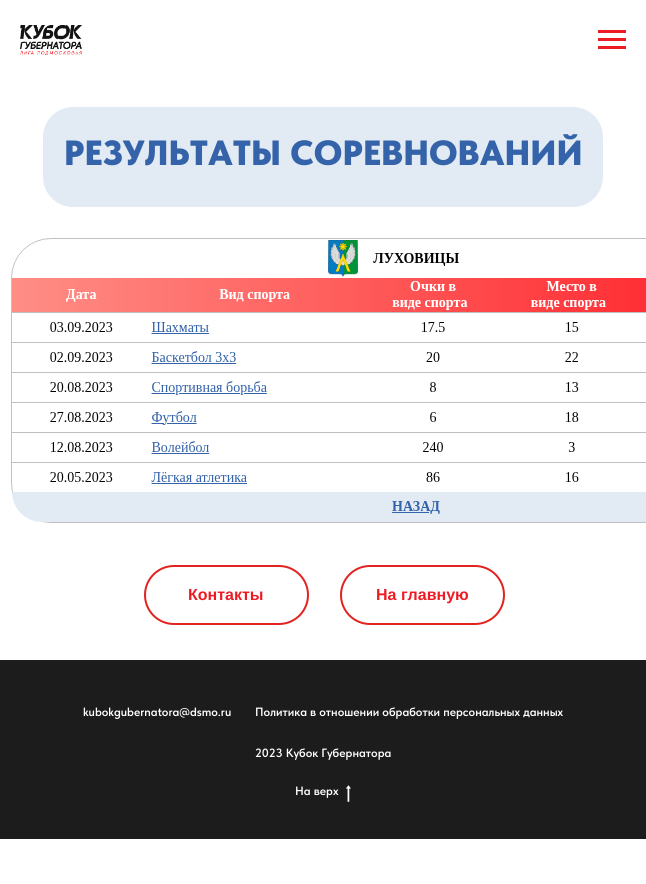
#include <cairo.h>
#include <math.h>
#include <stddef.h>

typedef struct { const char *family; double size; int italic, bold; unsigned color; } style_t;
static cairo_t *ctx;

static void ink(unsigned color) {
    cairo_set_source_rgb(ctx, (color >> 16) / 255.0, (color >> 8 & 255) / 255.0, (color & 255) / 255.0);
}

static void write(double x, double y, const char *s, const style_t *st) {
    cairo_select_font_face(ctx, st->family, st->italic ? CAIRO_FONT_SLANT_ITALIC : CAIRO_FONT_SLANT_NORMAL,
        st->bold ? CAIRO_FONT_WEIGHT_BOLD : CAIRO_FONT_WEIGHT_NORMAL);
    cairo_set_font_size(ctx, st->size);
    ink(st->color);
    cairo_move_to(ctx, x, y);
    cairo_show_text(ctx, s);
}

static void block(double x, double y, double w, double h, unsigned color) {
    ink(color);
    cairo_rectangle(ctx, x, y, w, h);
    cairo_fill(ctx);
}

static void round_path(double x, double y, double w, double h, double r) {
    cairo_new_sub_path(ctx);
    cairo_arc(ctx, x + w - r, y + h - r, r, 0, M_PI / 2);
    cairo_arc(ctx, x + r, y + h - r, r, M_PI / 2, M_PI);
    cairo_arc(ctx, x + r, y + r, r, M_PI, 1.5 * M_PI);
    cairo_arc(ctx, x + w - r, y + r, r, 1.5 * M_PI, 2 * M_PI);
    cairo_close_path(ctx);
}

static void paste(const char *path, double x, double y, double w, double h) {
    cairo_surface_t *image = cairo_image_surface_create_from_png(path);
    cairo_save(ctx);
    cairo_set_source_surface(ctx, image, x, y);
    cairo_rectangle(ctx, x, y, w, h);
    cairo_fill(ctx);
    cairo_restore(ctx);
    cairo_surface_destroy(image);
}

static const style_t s1 = {"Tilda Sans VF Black", 35, 0, 0, 0x3463aa};
static const style_t s2 = {"Liberation Sans", 16, 0, 1, 0xed1c24};
static const style_t s3 = {"Tilda Sans VF SemiBold", 12, 0, 0, 0xffffff};

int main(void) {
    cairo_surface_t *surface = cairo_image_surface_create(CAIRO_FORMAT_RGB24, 646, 884);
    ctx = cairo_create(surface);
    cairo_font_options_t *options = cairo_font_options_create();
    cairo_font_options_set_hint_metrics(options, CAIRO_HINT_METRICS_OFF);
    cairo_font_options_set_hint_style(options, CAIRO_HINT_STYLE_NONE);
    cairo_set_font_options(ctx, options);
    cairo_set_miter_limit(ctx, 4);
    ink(0xffffff);
    cairo_paint(ctx);
    paste("pic1.png", 20, 25, 62, 30);
    block(598, 30, 28, 3, 0xed1c24);
    block(598, 38, 28, 3, 0xed1c24);
    block(598, 46, 28, 3, 0xed1c24);
    ink(0xe2ebf4);
    round_path(43, 107, 560, 100, 30);
    cairo_fill(ctx);
    write(64, 165, "РЕЗУЛЬТАТЫ СОРЕВНОВАНИЙ", &s1);
    paste("pic2.png", 11, 238, 635, 285);
    round_path(145, 566, 163, 58, 29);
    ink(0xe22320);
    cairo_stroke(ctx);
    write(188, 600, "Контакты", &s2);
    round_path(341, 566, 163, 58, 29);
    ink(0xe22320);
    cairo_stroke(ctx);
    write(376, 600, "На главную", &s2);
    block(0, 660, 646, 179, 0x1c1c1c);
    write(83, 716, "kubokgubernatora@dsmo.ru", &s3);
    write(255, 716, "Политика в отношении обработки персональных данных", &s3);
    write(255, 757, "2023 Кубок Губернатора", &s3);
    write(295, 795, "На верх", &s3);
    paste("pic3.png", 346, 785, 5, 17);
    cairo_surface_write_to_png(surface, "screenshot.png");
    cairo_font_options_destroy(options);
    cairo_destroy(ctx);
    cairo_surface_destroy(surface);
    return 0;
}
